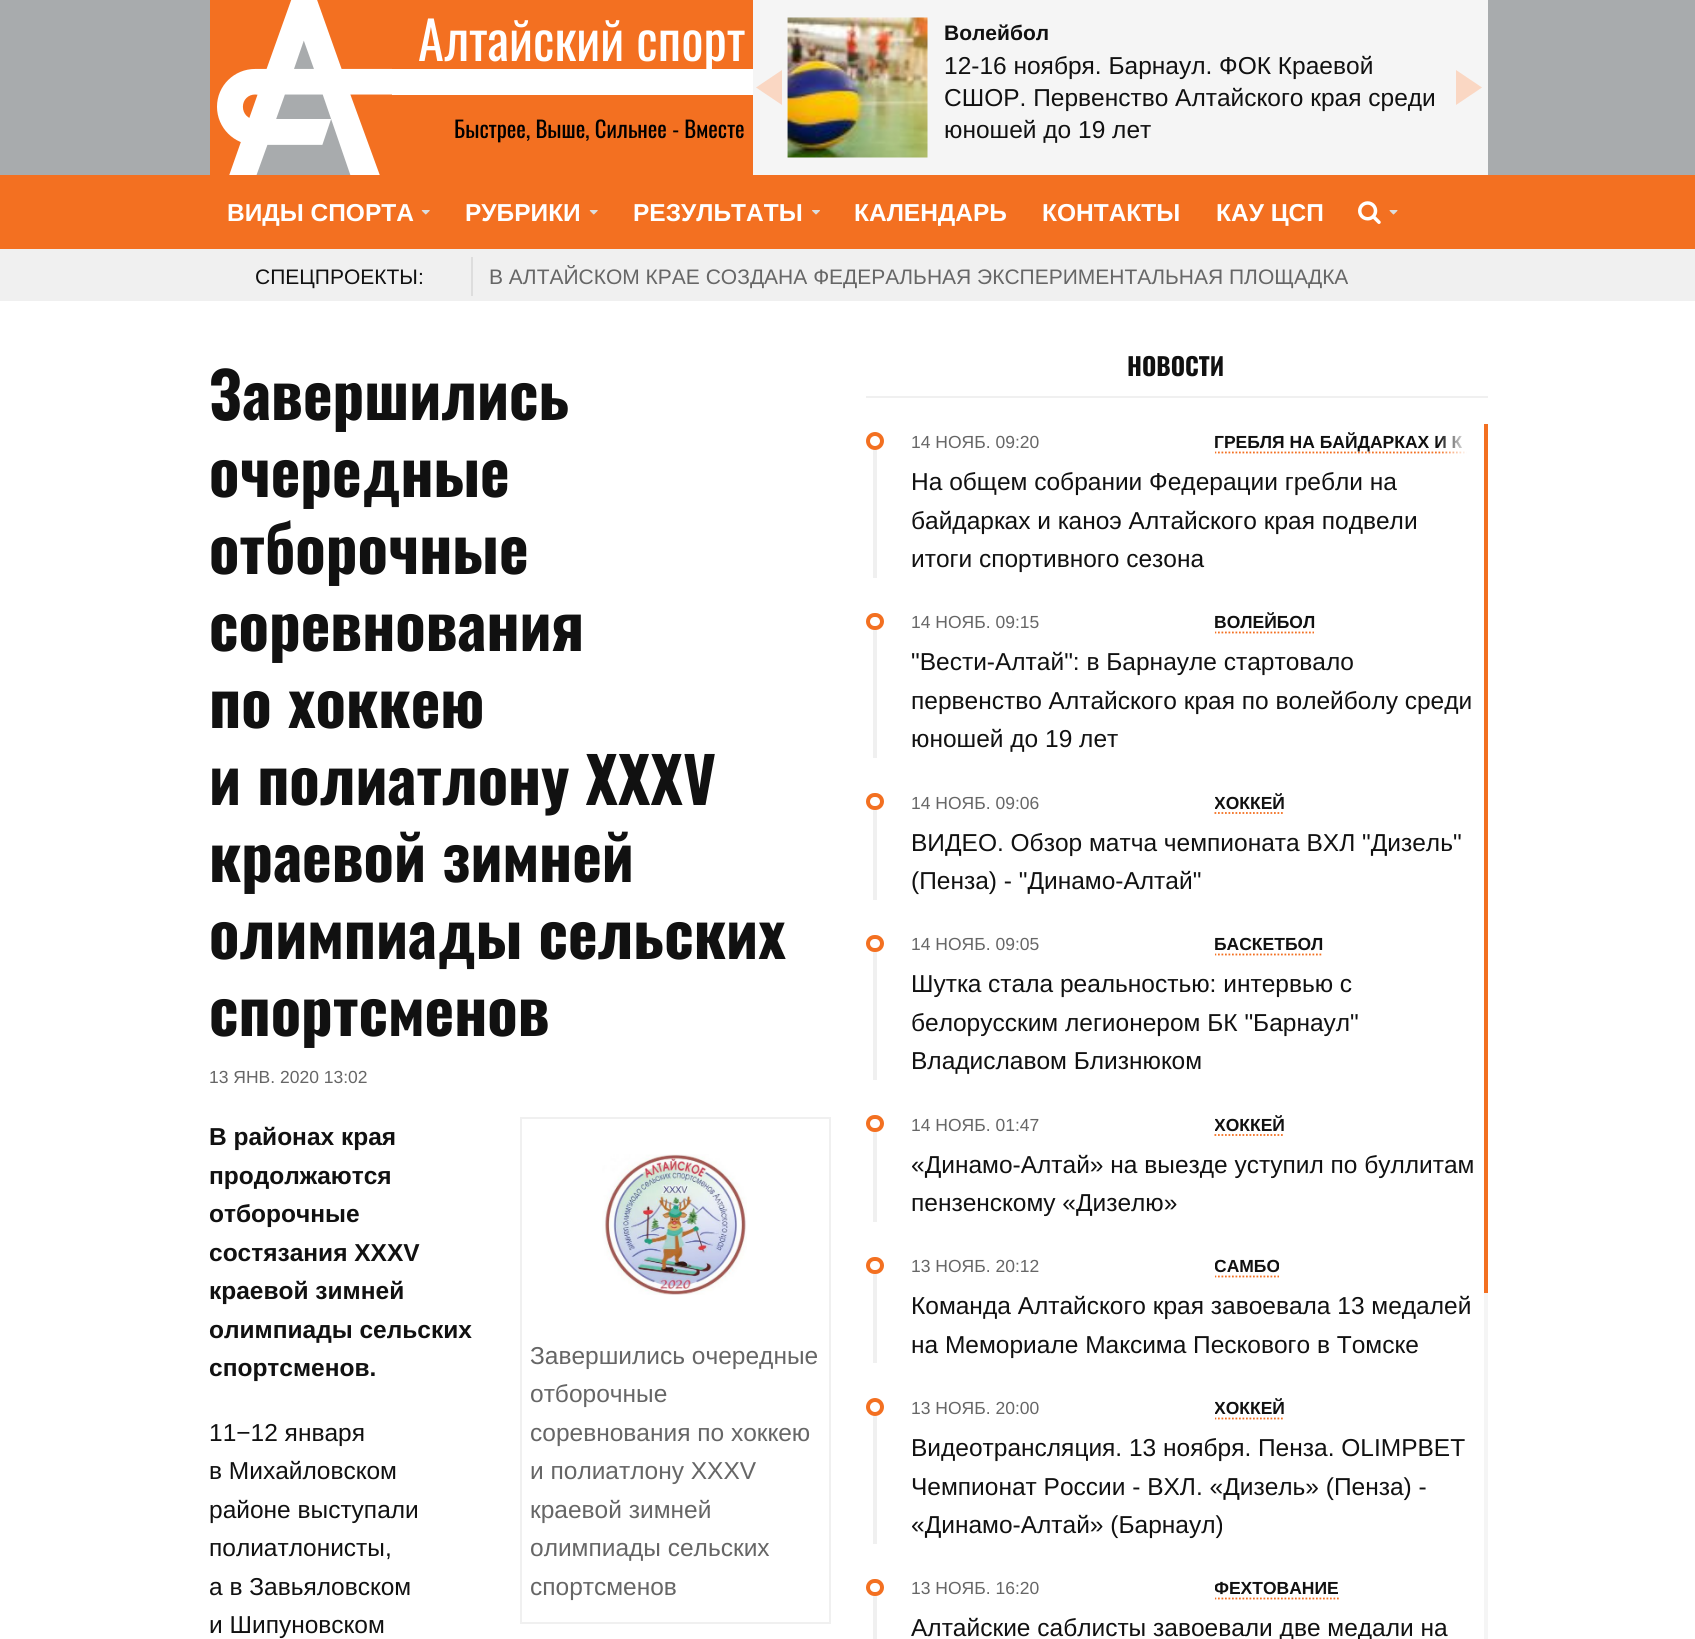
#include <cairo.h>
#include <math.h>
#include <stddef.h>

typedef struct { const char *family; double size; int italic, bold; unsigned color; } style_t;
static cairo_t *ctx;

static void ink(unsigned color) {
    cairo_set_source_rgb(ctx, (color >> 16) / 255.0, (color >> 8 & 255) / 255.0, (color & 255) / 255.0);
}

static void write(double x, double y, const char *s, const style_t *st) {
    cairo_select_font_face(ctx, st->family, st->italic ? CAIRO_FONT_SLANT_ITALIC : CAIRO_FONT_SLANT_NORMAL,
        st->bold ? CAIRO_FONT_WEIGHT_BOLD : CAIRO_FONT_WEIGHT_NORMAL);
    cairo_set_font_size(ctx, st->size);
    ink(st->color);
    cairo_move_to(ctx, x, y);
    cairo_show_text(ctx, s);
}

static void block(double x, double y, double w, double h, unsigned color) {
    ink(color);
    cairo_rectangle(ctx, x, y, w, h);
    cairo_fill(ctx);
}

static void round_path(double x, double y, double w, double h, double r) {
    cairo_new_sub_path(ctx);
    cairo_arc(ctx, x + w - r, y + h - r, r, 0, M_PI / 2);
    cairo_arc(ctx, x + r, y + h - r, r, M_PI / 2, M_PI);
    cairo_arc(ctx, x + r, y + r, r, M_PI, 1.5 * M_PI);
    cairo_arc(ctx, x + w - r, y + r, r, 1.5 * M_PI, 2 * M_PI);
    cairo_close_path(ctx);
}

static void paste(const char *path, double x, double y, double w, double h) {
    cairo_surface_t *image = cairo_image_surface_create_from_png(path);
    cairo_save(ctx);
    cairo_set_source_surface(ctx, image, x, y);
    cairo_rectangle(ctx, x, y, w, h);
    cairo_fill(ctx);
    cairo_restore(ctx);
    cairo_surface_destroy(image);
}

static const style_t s1 = {"Oswald", 52.5, 0, 0, 0xffffff};
static const style_t s2 = {"Oswald", 22.75, 0, 0, 0x000000};
static const style_t s3 = {"Liberation Sans", 21, 0, 1, 0x111111};
static const style_t s4 = {"Liberation Sans", 24.5, 0, 0, 0x111111};
static const style_t s5 = {"Liberation Sans", 24.5, 0, 1, 0xffffff};
static const style_t s6 = {"Liberation Sans", 21, 0, 0, 0x111111};
static const style_t s7 = {"Liberation Sans", 21, 0, 0, 0x666666};
static const style_t s8 = {"Oswald", 63, 0, 1, 0x111111};
static const style_t s9 = {"Liberation Sans", 17.5, 0, 0, 0x666666};
static const style_t s10 = {"Liberation Sans", 24.5, 0, 1, 0x111111};
static const style_t s11 = {"Liberation Sans", 24.5, 0, 0, 0x666666};
static const style_t s12 = {"Oswald", 24.5, 0, 1, 0x111111};
static const style_t s13 = {"Liberation Sans", 17.5, 0, 1, 0x111111};

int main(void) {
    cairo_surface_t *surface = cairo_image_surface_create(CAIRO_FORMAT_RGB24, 1695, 1639);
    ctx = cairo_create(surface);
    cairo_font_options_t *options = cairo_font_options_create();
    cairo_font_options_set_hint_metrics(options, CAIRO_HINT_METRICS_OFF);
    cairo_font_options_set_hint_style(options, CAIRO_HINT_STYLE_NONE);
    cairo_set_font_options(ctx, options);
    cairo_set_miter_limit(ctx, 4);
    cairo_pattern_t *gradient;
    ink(0xffffff);
    cairo_paint(ctx);
    block(0, 0, 1695, 175, 0xa8abad);
    block(753, 0, 735, 175, 0xf5f5f5);
    block(392, 0, 361, 175, 0xf37021);
    block(392, 69, 361, 26, 0xffffff);
    paste("pic1.png", 210, 0, 182, 175);
    write(418, 61, "Алтайский спорт", &s1);
    write(454, 138, "Быстрее, Выше, Сильнее - Вместе", &s2);
    ink(0xfad7c3);
    cairo_new_path(ctx);
    cairo_move_to(ctx, 782, 70);
    cairo_line_to(ctx, 782, 105);
    cairo_line_to(ctx, 756, 87.5);
    cairo_close_path(ctx);
    cairo_fill(ctx);
    paste("pic2.png", 787, 17, 141, 141);
    write(944, 40, "Волейбол", &s3);
    write(944, 74, "12-16 ноября. Барнаул. ФОК Краевой", &s4);
    write(944, 106, "СШОР. Первенство Алтайского края среди", &s4);
    write(944, 138, "юношей до 19 лет", &s4);
    ink(0xfad7c3);
    cairo_new_path(ctx);
    cairo_move_to(ctx, 1456, 105);
    cairo_line_to(ctx, 1456, 70);
    cairo_line_to(ctx, 1482, 87.5);
    cairo_close_path(ctx);
    cairo_fill(ctx);
    block(0, 175, 1695, 74, 0xf37021);
    write(227, 221, "ВИДЫ СПОРТА", &s5);
    paste("pic3.png", 421, 210, 9, 5);
    write(465, 221, "РУБРИКИ", &s5);
    paste("pic3.png", 589, 210, 9, 5);
    write(633, 221, "РЕЗУЛЬТАТЫ", &s5);
    paste("pic4.png", 812, 210, 8, 5);
    write(854, 221, "КАЛЕНДАРЬ", &s5);
    write(1042, 221, "КОНТАКТЫ", &s5);
    write(1216, 221, "КАУ ЦСП", &s5);
    paste("pic5.png", 1358, 201, 23, 23);
    paste("pic6.png", 1389, 210, 9, 5);
    block(0, 249, 1695, 52, 0xf0f0f0);
    block(471, 257, 2, 39, 0xdddddd);
    write(255, 284, "СПЕЦПРОЕКТЫ:", &s6);
    write(489, 284, "В АЛТАЙСКОМ КРАЕ СОЗДАНА ФЕДЕРАЛЬНАЯ ЭКСПЕРИМЕНТАЛЬНАЯ ПЛОЩАДКА", &s7);
    write(209, 420, "Завершились", &s8);
    write(209, 497, "очередные", &s8);
    write(209, 574, "отборочные", &s8);
    write(209, 651, "соревнования", &s8);
    write(209, 728, "по хоккею", &s8);
    write(209, 805, "и полиатлону XXXV", &s8);
    write(209, 882, "краевой зимней", &s8);
    write(209, 959, "олимпиады сельских", &s8);
    write(209, 1036, "спортсменов", &s8);
    write(209, 1083, "13 ЯНВ. 2020 13:02", &s9);
    write(209, 1145, "В районах края", &s10);
    write(209, 1184, "продолжаются", &s10);
    write(209, 1222, "отборочные", &s10);
    write(209, 1261, "состязания ХXXV", &s10);
    write(209, 1299, "краевой зимней", &s10);
    write(209, 1338, "олимпиады сельских", &s10);
    write(209, 1376, "спортсменов.", &s10);
    write(209, 1441, "11−12 января", &s4);
    write(209, 1479, "в Михайловском", &s4);
    write(209, 1518, "районе выступали", &s4);
    write(209, 1556, "полиатлонисты,", &s4);
    write(209, 1595, "а в Завьяловском", &s4);
    write(209, 1633, "и Шипуновском", &s4);
    cairo_rectangle(ctx, 521, 1118, 309, 505);
    ink(0xf0f0f0);
    cairo_stroke(ctx);
    paste("pic7.png", 602, 1154, 145, 141);
    write(530, 1364, "Завершились очередные", &s11);
    write(530, 1402, "отборочные", &s11);
    write(530, 1441, "соревнования по хоккею", &s11);
    write(530, 1479, "и полиатлону XXXV", &s11);
    write(530, 1518, "краевой зимней", &s11);
    write(530, 1556, "олимпиады сельских", &s11);
    write(530, 1595, "спортсменов", &s11);
    block(866, 396, 622, 2, 0xf0f0f0);
    write(1127, 376, "НОВОСТИ", &s12);
    block(873, 450, 4, 128, 0xf0f0f0);
    cairo_new_path(ctx);
    cairo_arc(ctx, 875, 441, 7, 0, 2 * M_PI);
    ink(0xf37021);
    cairo_set_line_width(ctx, 4);
    cairo_stroke(ctx);
    write(911, 448, "14 НОЯБ. 09:20", &s9);
    cairo_save(ctx);
    cairo_rectangle(ctx, 1215, 424, 262, 38);
    cairo_clip(ctx);
    cairo_new_path(ctx);
    cairo_move_to(ctx, 1214.5, 452.5);
    cairo_line_to(ctx, 1514, 452.5);
    ink(0xf37021);
    cairo_set_line_width(ctx, 1.8);
    cairo_set_dash(ctx, (double[]){1.75, 1.75}, 2, 0);
    cairo_stroke(ctx);
    write(1214, 448, "ГРЕБЛЯ НА БАЙДАРКАХ И К", &s13);
    cairo_restore(ctx);
    gradient = cairo_pattern_create_linear(1439, 443, 1477, 443);
    cairo_pattern_add_color_stop_rgba(gradient, 0, 1, 1, 1, 0);
    cairo_pattern_add_color_stop_rgba(gradient, 0.75, 1, 1, 1, 1);
    cairo_set_source(ctx, gradient);
    cairo_pattern_destroy(gradient);
    cairo_rectangle(ctx, 1440, 435, 36, 19);
    cairo_fill(ctx);
    write(911, 490, "На общем собрании Федерации гребли на", &s4);
    write(911, 529, "байдарках и каноэ Алтайского края подвели", &s4);
    write(911, 567, "итоги спортивного сезона", &s4);
    block(873, 630, 4, 128, 0xf0f0f0);
    round_path(868, 615, 14, 13, 6.5);
    ink(0xf37021);
    cairo_stroke(ctx);
    write(911, 628, "14 НОЯБ. 09:15", &s9);
    cairo_save(ctx);
    cairo_rectangle(ctx, 1215, 604, 262, 38);
    cairo_clip(ctx);
    write(1214, 628, "ВОЛЕЙБОЛ", &s13);
    cairo_new_path(ctx);
    cairo_move_to(ctx, 1214.5, 632.5);
    cairo_line_to(ctx, 1314, 632.5);
    ink(0xf37021);
    cairo_set_line_width(ctx, 1.8);
    cairo_set_dash(ctx, (double[]){1.75, 1.75}, 2, 0);
    cairo_stroke(ctx);
    cairo_restore(ctx);
    write(911, 670, "\"Вести-Алтай\": в Барнауле стартовало", &s4);
    write(911, 709, "первенство Алтайского края по волейболу среди", &s4);
    write(911, 747, "юношей до 19 лет", &s4);
    block(873, 810, 4, 90, 0xf0f0f0);
    round_path(868, 795, 14, 13, 6.5);
    ink(0xf37021);
    cairo_stroke(ctx);
    write(911, 809, "14 НОЯБ. 09:06", &s9);
    cairo_save(ctx);
    cairo_rectangle(ctx, 1215, 784, 262, 39);
    cairo_clip(ctx);
    write(1214, 809, "ХОККЕЙ", &s13);
    cairo_restore(ctx);
    cairo_new_path(ctx);
    cairo_move_to(ctx, 1214.5, 813);
    cairo_line_to(ctx, 1284.5, 813);
    ink(0xf37021);
    cairo_set_line_width(ctx, 1.8);
    cairo_set_dash(ctx, (double[]){1.75, 1.75}, 2, 0);
    cairo_stroke(ctx);
    write(911, 851, "ВИДЕО. Обзор матча чемпионата ВХЛ \"Дизель\"", &s4);
    write(911, 889, "(Пенза) - \"Динамо-Алтай\"", &s4);
    block(873, 952, 4, 128, 0xf0f0f0);
    round_path(868, 937, 14, 13, 6.5);
    ink(0xf37021);
    cairo_set_line_width(ctx, 4);
    cairo_set_dash(ctx, NULL, 0, 0);
    cairo_stroke(ctx);
    write(911, 950, "14 НОЯБ. 09:05", &s9);
    cairo_save(ctx);
    cairo_rectangle(ctx, 1215, 926, 262, 38);
    cairo_clip(ctx);
    write(1214, 950, "БАСКЕТБОЛ", &s13);
    cairo_new_path(ctx);
    cairo_move_to(ctx, 1214.5, 954.5);
    cairo_line_to(ctx, 1323, 954.5);
    ink(0xf37021);
    cairo_set_line_width(ctx, 1.8);
    cairo_set_dash(ctx, (double[]){1.75, 1.75}, 2, 0);
    cairo_stroke(ctx);
    cairo_restore(ctx);
    write(911, 992, "Шутка стала реальностью: интервью с", &s4);
    write(911, 1031, "белорусским легионером БК \"Барнаул\"", &s4);
    write(911, 1069, "Владиславом Близнюком", &s4);
    block(873, 1132, 4, 90, 0xf0f0f0);
    round_path(868, 1117, 14, 13, 6.5);
    ink(0xf37021);
    cairo_stroke(ctx);
    write(911, 1131, "14 НОЯБ. 01:47", &s9);
    cairo_save(ctx);
    cairo_rectangle(ctx, 1215, 1106, 262, 39);
    cairo_clip(ctx);
    write(1214, 1131, "ХОККЕЙ", &s13);
    cairo_restore(ctx);
    cairo_new_path(ctx);
    cairo_move_to(ctx, 1214.5, 1135);
    cairo_line_to(ctx, 1284.5, 1135);
    ink(0xf37021);
    cairo_set_line_width(ctx, 1.8);
    cairo_set_dash(ctx, (double[]){1.75, 1.75}, 2, 0);
    cairo_stroke(ctx);
    write(911, 1173, "«Динамо-Алтай» на выезде уступил по буллитам", &s4);
    write(911, 1211, "пензенскому «Дизелю»", &s4);
    block(873, 1274, 4, 89, 0xf0f0f0);
    round_path(868, 1259, 14, 13, 6.5);
    ink(0xf37021);
    cairo_set_line_width(ctx, 4);
    cairo_set_dash(ctx, NULL, 0, 0);
    cairo_stroke(ctx);
    write(911, 1272, "13 НОЯБ. 20:12", &s9);
    cairo_save(ctx);
    cairo_rectangle(ctx, 1215, 1248, 262, 38);
    cairo_clip(ctx);
    write(1214, 1272, "САМБО", &s13);
    cairo_new_path(ctx);
    cairo_move_to(ctx, 1214.5, 1276.5);
    cairo_line_to(ctx, 1279, 1276.5);
    ink(0xf37021);
    cairo_set_line_width(ctx, 1.8);
    cairo_set_dash(ctx, (double[]){1.75, 1.75}, 2, 0);
    cairo_stroke(ctx);
    cairo_restore(ctx);
    write(911, 1314, "Команда Алтайского края завоевала 13 медалей", &s4);
    write(911, 1353, "на Мемориале Максима Пескового в Томске", &s4);
    block(873, 1416, 4, 128, 0xf0f0f0);
    cairo_new_path(ctx);
    cairo_arc(ctx, 875, 1407, 7, 0, 2 * M_PI);
    ink(0xf37021);
    cairo_stroke(ctx);
    write(911, 1414, "13 НОЯБ. 20:00", &s9);
    cairo_save(ctx);
    cairo_rectangle(ctx, 1215, 1390, 262, 38);
    cairo_clip(ctx);
    write(1214, 1414, "ХОККЕЙ", &s13);
    cairo_new_path(ctx);
    cairo_move_to(ctx, 1214.5, 1418.5);
    cairo_line_to(ctx, 1284.5, 1418.5);
    ink(0xf37021);
    cairo_set_line_width(ctx, 1.8);
    cairo_set_dash(ctx, (double[]){1.75, 1.75}, 2, 0);
    cairo_stroke(ctx);
    cairo_restore(ctx);
    write(911, 1456, "Видеотрансляция. 13 ноября. Пенза. OLIMPBET", &s4);
    write(911, 1495, "Чемпионат России - ВХЛ. «Дизель» (Пенза) -", &s4);
    write(911, 1533, "«Динамо-Алтай» (Барнаул)", &s4);
    block(873, 1596, 4, 43, 0xf0f0f0);
    round_path(868, 1581, 14, 13, 6.5);
    ink(0xf37021);
    cairo_stroke(ctx);
    write(911, 1594, "13 НОЯБ. 16:20", &s9);
    cairo_save(ctx);
    cairo_rectangle(ctx, 1215, 1570, 262, 38);
    cairo_clip(ctx);
    write(1214, 1594, "ФЕХТОВАНИЕ", &s13);
    cairo_new_path(ctx);
    cairo_move_to(ctx, 1214.5, 1598.5);
    cairo_line_to(ctx, 1339, 1598.5);
    ink(0xf37021);
    cairo_set_line_width(ctx, 1.8);
    cairo_set_dash(ctx, (double[]){1.75, 1.75}, 2, 0);
    cairo_stroke(ctx);
    cairo_restore(ctx);
    write(911, 1636, "Алтайские саблисты завоевали две медали на", &s4);
    block(1484, 1293, 4, 346, 0xf5f5f5);
    block(1484, 424, 4, 869, 0xf37021);
    cairo_surface_write_to_png(surface, "screenshot.png");
    cairo_font_options_destroy(options);
    cairo_destroy(ctx);
    cairo_surface_destroy(surface);
    return 0;
}
